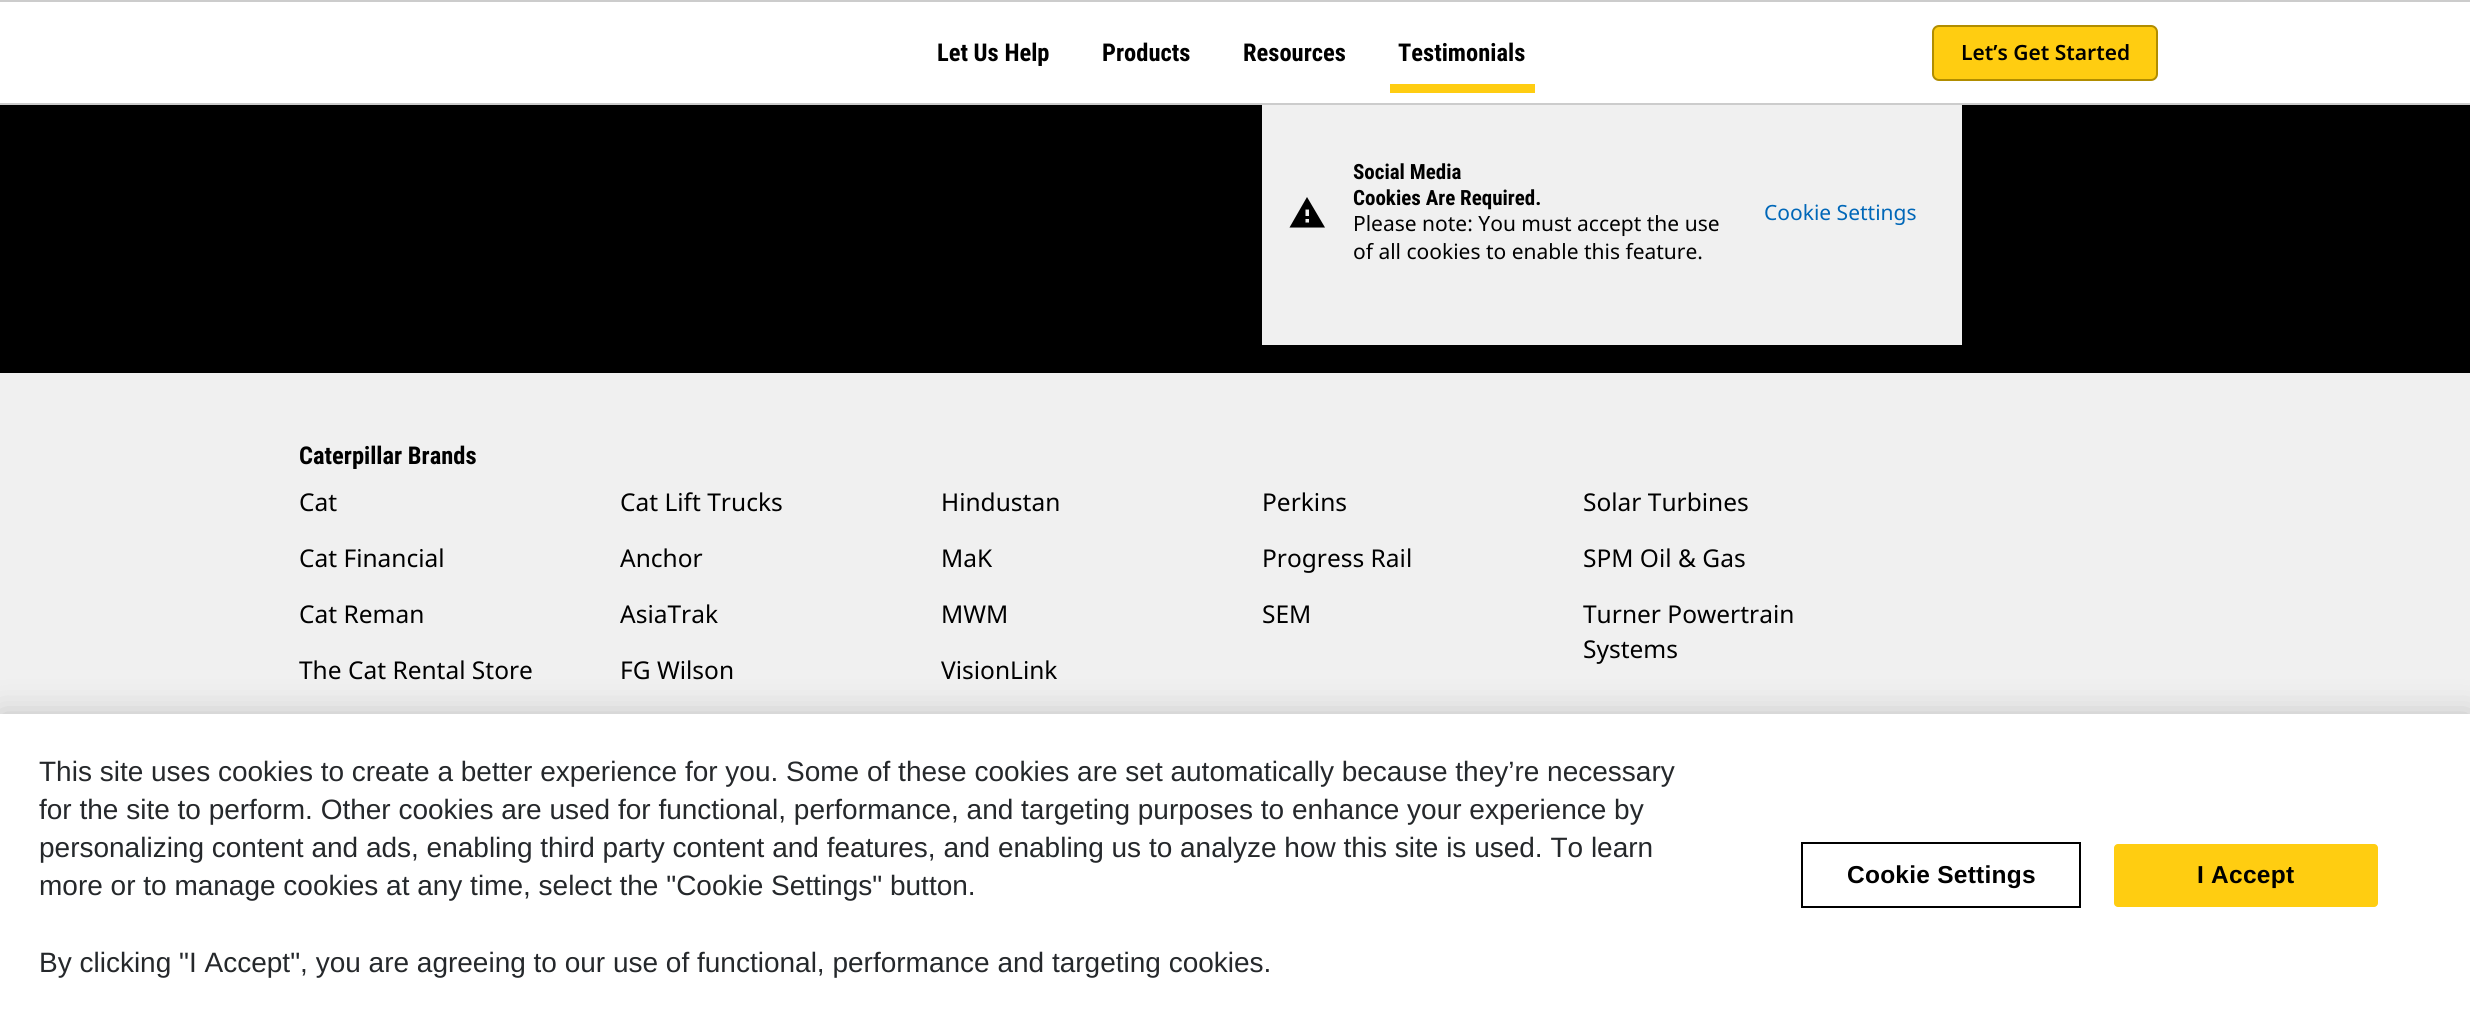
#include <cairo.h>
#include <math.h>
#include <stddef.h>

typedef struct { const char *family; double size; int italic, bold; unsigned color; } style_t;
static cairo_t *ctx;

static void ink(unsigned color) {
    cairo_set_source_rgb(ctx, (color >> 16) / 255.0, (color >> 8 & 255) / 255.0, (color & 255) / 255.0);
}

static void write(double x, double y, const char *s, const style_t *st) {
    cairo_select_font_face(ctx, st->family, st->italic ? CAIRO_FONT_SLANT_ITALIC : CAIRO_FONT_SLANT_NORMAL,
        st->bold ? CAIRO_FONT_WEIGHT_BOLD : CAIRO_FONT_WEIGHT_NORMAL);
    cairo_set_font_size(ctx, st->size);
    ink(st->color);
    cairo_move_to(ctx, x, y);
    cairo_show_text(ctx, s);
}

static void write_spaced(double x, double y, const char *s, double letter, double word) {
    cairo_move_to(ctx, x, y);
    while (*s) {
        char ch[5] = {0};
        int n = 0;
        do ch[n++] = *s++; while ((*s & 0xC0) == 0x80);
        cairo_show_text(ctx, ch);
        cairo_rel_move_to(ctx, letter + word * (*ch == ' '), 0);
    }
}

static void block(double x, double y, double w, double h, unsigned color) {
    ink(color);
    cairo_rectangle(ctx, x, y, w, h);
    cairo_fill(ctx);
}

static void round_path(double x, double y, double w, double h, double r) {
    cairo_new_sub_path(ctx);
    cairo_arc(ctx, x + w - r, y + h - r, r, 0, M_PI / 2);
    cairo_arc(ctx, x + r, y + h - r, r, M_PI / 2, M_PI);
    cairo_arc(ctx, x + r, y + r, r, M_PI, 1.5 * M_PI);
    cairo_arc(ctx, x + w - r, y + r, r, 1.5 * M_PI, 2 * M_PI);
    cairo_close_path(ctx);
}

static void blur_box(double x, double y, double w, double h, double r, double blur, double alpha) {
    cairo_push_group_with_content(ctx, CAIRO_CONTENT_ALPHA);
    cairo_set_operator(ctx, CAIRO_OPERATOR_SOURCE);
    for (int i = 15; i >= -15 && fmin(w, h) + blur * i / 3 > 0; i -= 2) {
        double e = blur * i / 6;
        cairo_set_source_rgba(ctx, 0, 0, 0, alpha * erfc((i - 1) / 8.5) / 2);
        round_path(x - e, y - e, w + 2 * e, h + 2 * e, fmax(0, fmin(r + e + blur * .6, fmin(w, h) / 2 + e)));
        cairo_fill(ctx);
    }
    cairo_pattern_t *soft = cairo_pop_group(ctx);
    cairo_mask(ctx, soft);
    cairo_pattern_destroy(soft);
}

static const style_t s1 = {"Roboto Condensed", 24.5, 0, 1, 0x000000};
static const style_t s2 = {"Noto Sans SemiBold", 21, 0, 0, 0x000000};
static const style_t s3 = {"Roboto Condensed", 21, 0, 1, 0x000000};
static const style_t s4 = {"Noto Sans", 21, 0, 0, 0x000000};
static const style_t s5 = {"Noto Sans", 21, 0, 0, 0x0067b8};
static const style_t s6 = {"Noto Sans", 24.5, 0, 0, 0x000000};
static const style_t s7 = {"Liberation Sans", 28, 0, 0, 0x25282b};

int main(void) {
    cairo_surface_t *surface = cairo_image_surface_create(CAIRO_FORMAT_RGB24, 2470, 1020);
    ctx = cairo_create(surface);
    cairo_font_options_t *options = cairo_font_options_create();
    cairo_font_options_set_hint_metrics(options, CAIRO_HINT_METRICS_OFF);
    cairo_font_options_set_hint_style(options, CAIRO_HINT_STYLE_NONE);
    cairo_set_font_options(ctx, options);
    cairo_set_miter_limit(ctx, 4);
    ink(0x000000);
    cairo_paint(ctx);
    block(0, 2, 2470, 101, 0xffffff);
    block(0, 0, 2470, 2, 0xcccccc);
    block(0, 103, 2470, 2, 0xcccccc);
    write(937, 61, "Let Us Help", &s1);
    write(1102, 61, "Products", &s1);
    write(1243, 61, "Resources", &s1);
    write(1398, 61, "Testimonials", &s1);
    block(1390, 84, 145, 9, 0xffcd11);
    round_path(1933, 26, 224, 54, 6);
    cairo_fill_preserve(ctx);
    ink(0xb18d00);
    cairo_stroke(ctx);
    write(1961, 60, "Let’s Get Started", &s2);
    block(1262, 105, 700, 240, 0xf0f0f0);
    ink(0x000000);
    cairo_new_path(ctx);
    cairo_move_to(ctx, 1309, 216);
    cairo_line_to(ctx, 1309, 209.5);
    cairo_line_to(ctx, 1305.5, 209.5);
    cairo_line_to(ctx, 1305.5, 216);
    cairo_close_path(ctx);
    cairo_move_to(ctx, 1309, 222.5);
    cairo_line_to(ctx, 1309, 219);
    cairo_line_to(ctx, 1305.5, 219);
    cairo_line_to(ctx, 1305.5, 222.5);
    cairo_close_path(ctx);
    cairo_move_to(ctx, 1289.5, 227.5);
    cairo_line_to(ctx, 1307, 197);
    cairo_line_to(ctx, 1325, 227.5);
    cairo_close_path(ctx);
    cairo_fill(ctx);
    write(1353, 179, "Social Media", &s3);
    write(1353, 205, "Cookies Are Required.", &s3);
    write(1353, 231, "Please note: You must accept the use", &s4);
    write(1353, 259, "of all cookies to enable this feature.", &s4);
    write(1764, 220, "Cookie Settings", &s5);
    block(0, 373, 2470, 341, 0xf0f0f0);
    write(299, 464, "Caterpillar Brands", &s1);
    write(299, 511, "Cat", &s6);
    write(299, 567, "Cat Financial", &s6);
    write(299, 623, "Cat Reman", &s6);
    write(299, 679, "The Cat Rental Store", &s6);
    write(620, 511, "Cat Lift Trucks", &s6);
    write(620, 567, "Anchor", &s6);
    write(620, 623, "AsiaTrak", &s6);
    write(620, 679, "FG Wilson", &s6);
    write(941, 511, "Hindustan", &s6);
    write(941, 567, "MaK", &s6);
    write(941, 623, "MWM", &s6);
    write(941, 679, "VisionLink", &s6);
    write(1262, 511, "Perkins", &s6);
    write(1262, 567, "Progress Rail", &s6);
    write(1262, 623, "SEM", &s6);
    write(1583, 511, "Solar Turbines", &s6);
    write(1583, 567, "SPM Oil & Gas", &s6);
    write(1583, 623, "Turner Powertrain", &s6);
    write(1583, 658, "Systems", &s6);
    ink(0x000000);
    blur_box(0, 714, 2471, 306, 0, 16, 0.2);
    block(0, 714, 2470, 306, 0xffffff);
    write(39, 781, "This site uses cookies to create a better experience for you. Some of these cookies are set automatically because they’re necessary", &s7);
    write(39, 819, "for the site to perform. Other cookies are used for functional, performance, and targeting purposes to enhance your experience by", &s7);
    write(39, 857, "personalizing content and ads, enabling third party content and features, and enabling us to analyze how this site is used. To learn", &s7);
    write(39, 895, "more or to manage cookies at any time, select the \"Cookie Settings\" button.", &s7);
    write(39, 972, "By clicking \"I Accept\", you are agreeing to our use of functional, performance and targeting cookies.", &s7);
    cairo_rectangle(ctx, 1802, 843, 278, 64);
    ink(0x000000);
    cairo_stroke(ctx);
    cairo_select_font_face(ctx, "Liberation Sans", CAIRO_FONT_SLANT_NORMAL, CAIRO_FONT_WEIGHT_BOLD);
    cairo_set_font_size(ctx, 24.5);
    write_spaced(1847, 883, "Cookie Settings", 0.25, 0);
    ink(0xffcd11);
    round_path(2114, 844, 264, 63, 4);
    cairo_fill(ctx);
    ink(0x000000);
    write_spaced(2197, 883, "I Accept", 0.25, 0);
    cairo_surface_write_to_png(surface, "screenshot.png");
    cairo_font_options_destroy(options);
    cairo_destroy(ctx);
    cairo_surface_destroy(surface);
    return 0;
}
